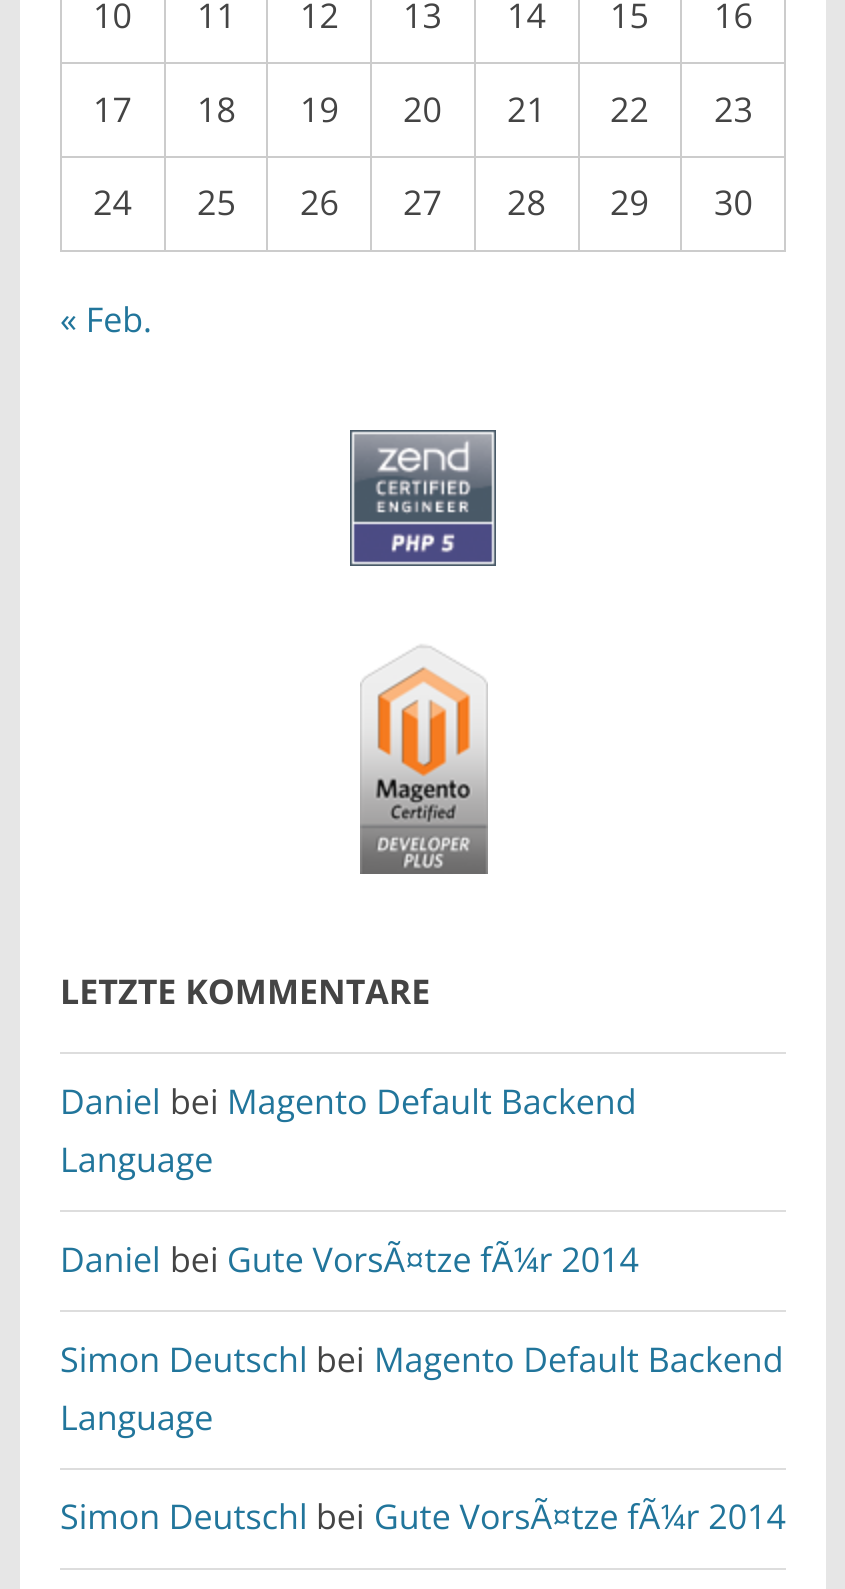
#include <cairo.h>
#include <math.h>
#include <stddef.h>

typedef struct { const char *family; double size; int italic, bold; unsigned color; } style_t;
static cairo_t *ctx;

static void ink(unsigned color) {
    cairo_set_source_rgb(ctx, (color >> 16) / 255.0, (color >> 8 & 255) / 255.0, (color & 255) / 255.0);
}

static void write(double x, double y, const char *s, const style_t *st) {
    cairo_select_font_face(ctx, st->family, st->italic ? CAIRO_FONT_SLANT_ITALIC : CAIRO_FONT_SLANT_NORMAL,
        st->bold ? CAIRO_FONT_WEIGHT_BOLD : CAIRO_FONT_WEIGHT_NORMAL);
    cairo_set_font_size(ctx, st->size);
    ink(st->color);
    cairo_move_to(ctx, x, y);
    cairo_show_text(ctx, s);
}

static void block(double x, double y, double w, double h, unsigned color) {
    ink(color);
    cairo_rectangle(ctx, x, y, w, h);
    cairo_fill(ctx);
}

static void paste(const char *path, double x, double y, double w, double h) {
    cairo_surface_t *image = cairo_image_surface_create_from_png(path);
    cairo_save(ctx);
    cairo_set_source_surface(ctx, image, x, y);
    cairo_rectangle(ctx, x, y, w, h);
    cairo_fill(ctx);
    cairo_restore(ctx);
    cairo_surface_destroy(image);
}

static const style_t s1 = {"Open Sans", 34, 0, 0, 0x444444};
static const style_t s2 = {"Open Sans", 34, 0, 0, 0x21759b};
static const style_t s3 = {"Open Sans", 34, 0, 1, 0x444444};

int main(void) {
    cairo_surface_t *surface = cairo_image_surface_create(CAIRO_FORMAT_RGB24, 845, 1589);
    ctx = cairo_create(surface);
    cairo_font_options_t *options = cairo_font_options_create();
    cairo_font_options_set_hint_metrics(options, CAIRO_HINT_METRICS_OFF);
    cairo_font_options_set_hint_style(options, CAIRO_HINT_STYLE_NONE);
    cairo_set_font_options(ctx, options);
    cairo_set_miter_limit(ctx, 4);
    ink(0xe6e6e6);
    cairo_paint(ctx);
    block(20, 0, 806, 1589, 0xffffff);
    block(784, 0, 2, 252, 0xcccccc);
    block(60, 250, 726, 2, 0xcccccc);
    block(60, 0, 2, 252, 0xcccccc);
    write(93, 28, "10", &s1);
    block(680, 62, 106, 2, 0xcccccc);
    block(680, 156, 106, 2, 0xcccccc);
    block(680, 156, 2, 96, 0xcccccc);
    block(578, 156, 104, 2, 0xcccccc);
    block(680, 62, 2, 96, 0xcccccc);
    block(578, 62, 104, 2, 0xcccccc);
    block(578, 156, 2, 96, 0xcccccc);
    block(474, 156, 106, 2, 0xcccccc);
    block(578, 62, 2, 96, 0xcccccc);
    block(474, 62, 106, 2, 0xcccccc);
    block(474, 156, 2, 96, 0xcccccc);
    block(370, 156, 106, 2, 0xcccccc);
    block(474, 62, 2, 96, 0xcccccc);
    block(370, 62, 106, 2, 0xcccccc);
    block(370, 156, 2, 96, 0xcccccc);
    block(266, 156, 106, 2, 0xcccccc);
    block(370, 62, 2, 96, 0xcccccc);
    block(266, 62, 106, 2, 0xcccccc);
    block(266, 156, 2, 96, 0xcccccc);
    block(164, 156, 104, 2, 0xcccccc);
    block(266, 62, 2, 96, 0xcccccc);
    block(164, 62, 104, 2, 0xcccccc);
    block(164, 156, 2, 96, 0xcccccc);
    block(60, 156, 106, 2, 0xcccccc);
    block(164, 62, 2, 96, 0xcccccc);
    block(60, 62, 106, 2, 0xcccccc);
    block(164, 0, 2, 64, 0xcccccc);
    write(197, 28, "11", &s1);
    block(266, 0, 2, 64, 0xcccccc);
    write(300, 28, "12", &s1);
    block(370, 0, 2, 64, 0xcccccc);
    write(403, 28, "13", &s1);
    block(474, 0, 2, 64, 0xcccccc);
    write(507, 28, "14", &s1);
    block(578, 0, 2, 64, 0xcccccc);
    write(610, 28, "15", &s1);
    block(680, 0, 2, 64, 0xcccccc);
    write(714, 28, "16", &s1);
    write(93, 122, "17", &s1);
    write(197, 122, "18", &s1);
    write(300, 122, "19", &s1);
    write(403, 122, "20", &s1);
    write(507, 122, "21", &s1);
    write(610, 122, "22", &s1);
    write(714, 122, "23", &s1);
    write(93, 215, "24", &s1);
    write(197, 215, "25", &s1);
    write(300, 215, "26", &s1);
    write(403, 215, "27", &s1);
    write(507, 215, "28", &s1);
    write(610, 215, "29", &s1);
    write(714, 215, "30", &s1);
    write(60, 332, "« Feb.", &s2);
    paste("pic1.png", 350, 430, 146, 136);
    paste("pic2.png", 360, 643, 128, 231);
    write(60, 1004, "LETZTE KOMMENTARE", &s3);
    block(60, 1052, 726, 2, 0xdddddd);
    block(60, 1210, 726, 2, 0xdddddd);
    write(60, 1114, "Daniel", &s2);
    write(170, 1114, "bei", &s1);
    write(227, 1114, "Magento Default Backend", &s2);
    write(60, 1172, "Language", &s2);
    block(60, 1310, 726, 2, 0xdddddd);
    write(60, 1272, "Daniel", &s2);
    write(170, 1272, "bei", &s1);
    write(227, 1272, "Gute VorsÃ¤tze fÃ¼r 2014", &s2);
    block(60, 1468, 726, 2, 0xdddddd);
    write(60, 1372, "Simon Deutschl", &s2);
    write(316, 1372, "bei", &s1);
    write(374, 1372, "Magento Default Backend", &s2);
    write(60, 1430, "Language", &s2);
    block(60, 1568, 726, 2, 0xdddddd);
    write(60, 1529, "Simon Deutschl", &s2);
    write(316, 1529, "bei", &s1);
    write(374, 1529, "Gute VorsÃ¤tze fÃ¼r 2014", &s2);
    cairo_surface_write_to_png(surface, "screenshot.png");
    cairo_font_options_destroy(options);
    cairo_destroy(ctx);
    cairo_surface_destroy(surface);
    return 0;
}
